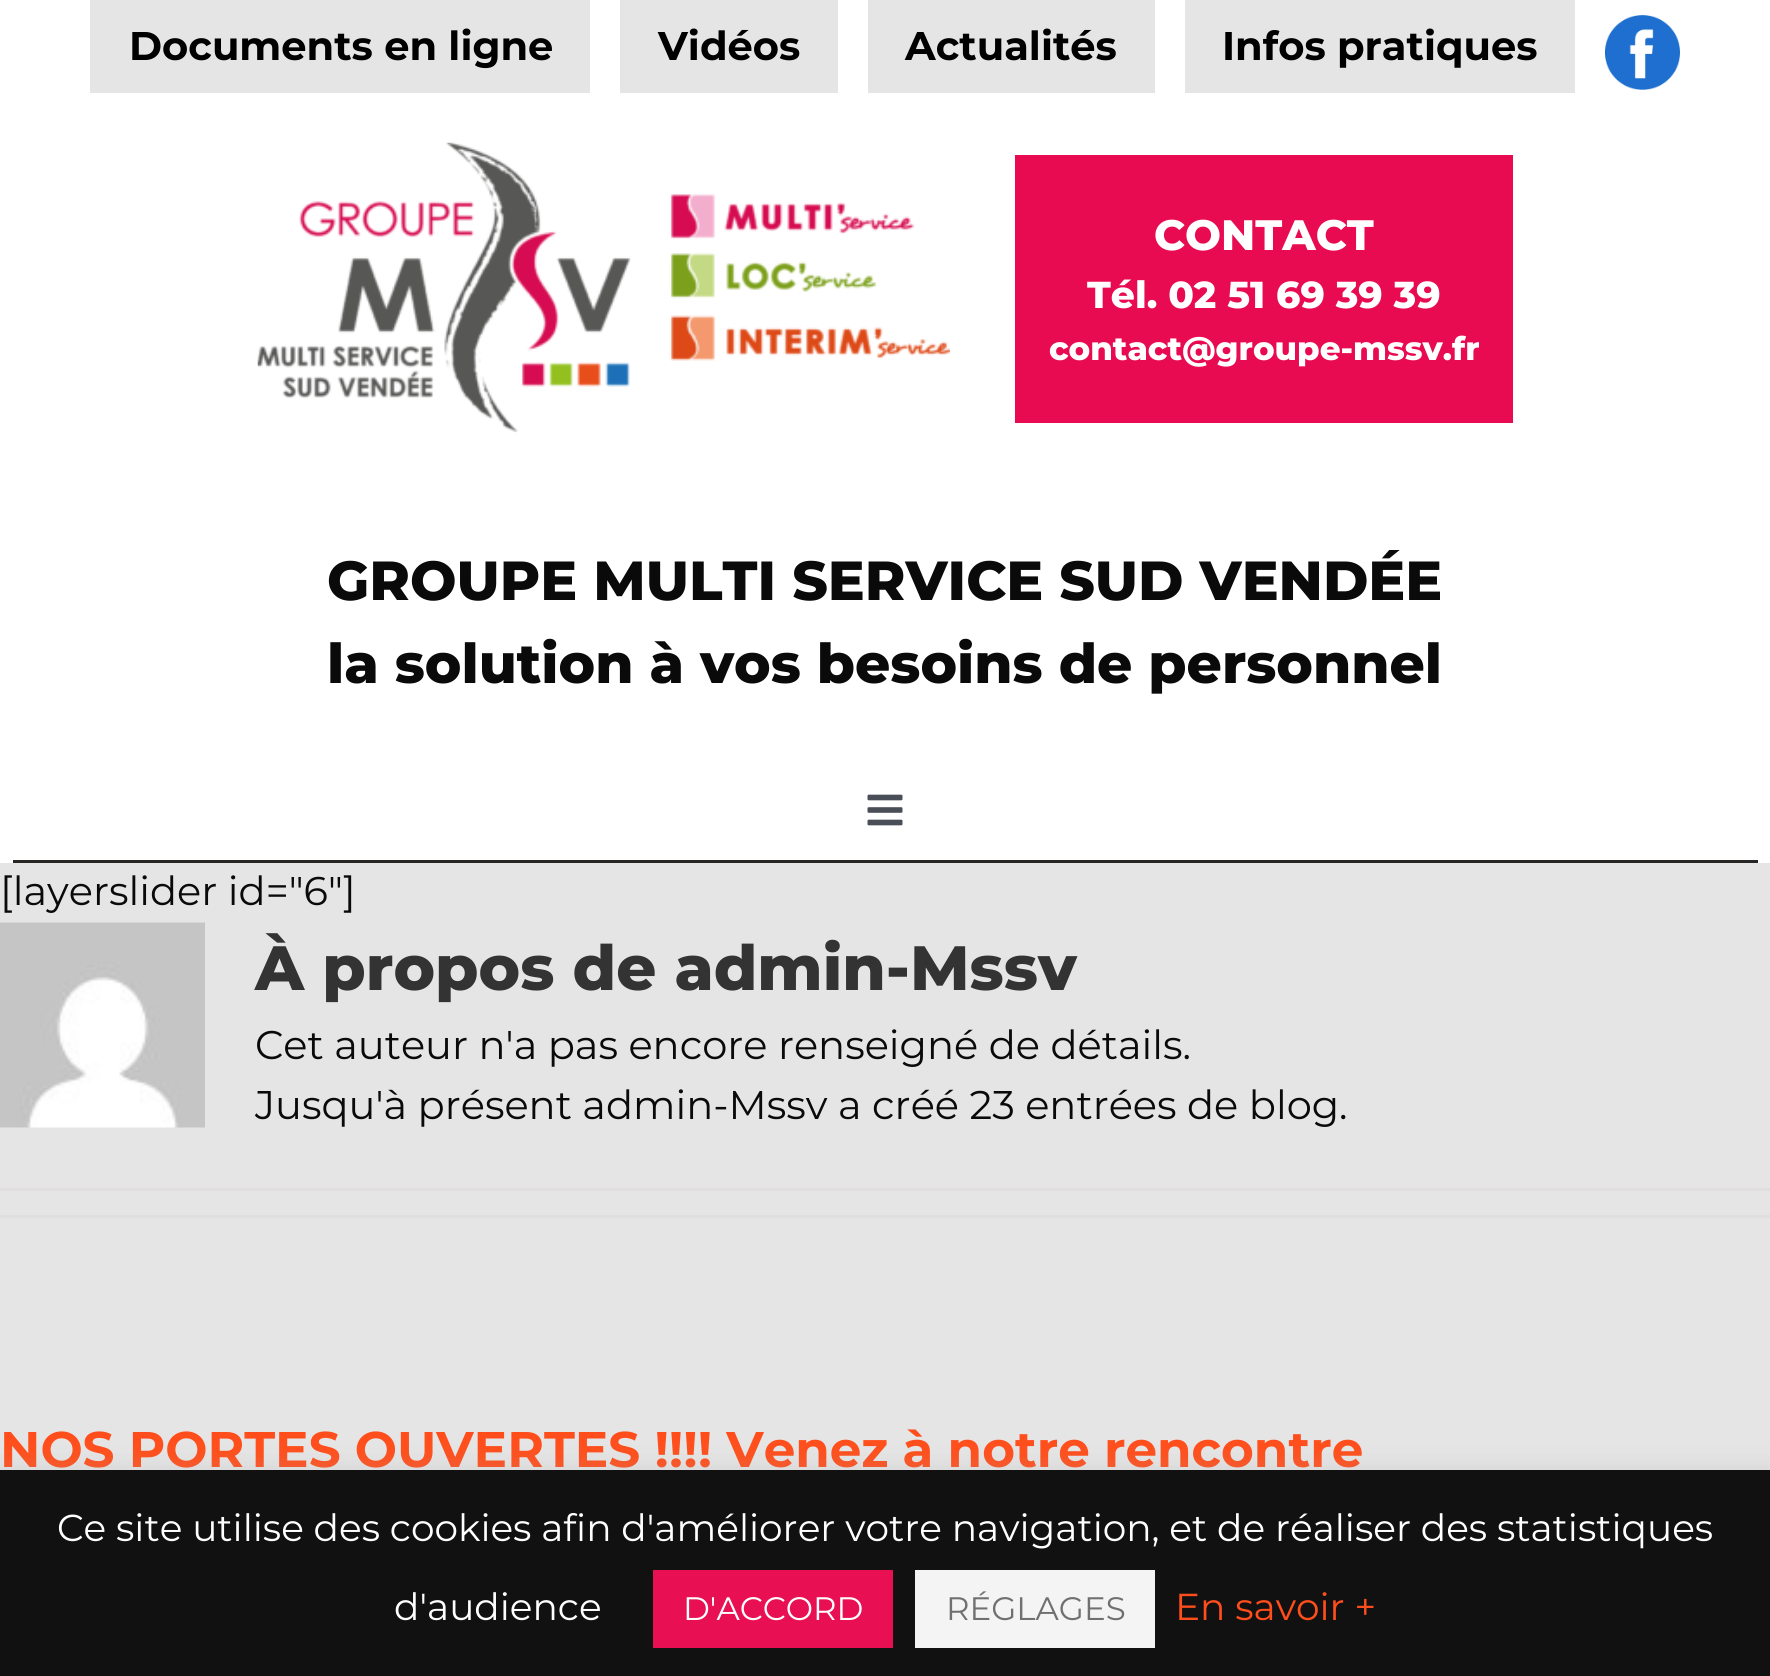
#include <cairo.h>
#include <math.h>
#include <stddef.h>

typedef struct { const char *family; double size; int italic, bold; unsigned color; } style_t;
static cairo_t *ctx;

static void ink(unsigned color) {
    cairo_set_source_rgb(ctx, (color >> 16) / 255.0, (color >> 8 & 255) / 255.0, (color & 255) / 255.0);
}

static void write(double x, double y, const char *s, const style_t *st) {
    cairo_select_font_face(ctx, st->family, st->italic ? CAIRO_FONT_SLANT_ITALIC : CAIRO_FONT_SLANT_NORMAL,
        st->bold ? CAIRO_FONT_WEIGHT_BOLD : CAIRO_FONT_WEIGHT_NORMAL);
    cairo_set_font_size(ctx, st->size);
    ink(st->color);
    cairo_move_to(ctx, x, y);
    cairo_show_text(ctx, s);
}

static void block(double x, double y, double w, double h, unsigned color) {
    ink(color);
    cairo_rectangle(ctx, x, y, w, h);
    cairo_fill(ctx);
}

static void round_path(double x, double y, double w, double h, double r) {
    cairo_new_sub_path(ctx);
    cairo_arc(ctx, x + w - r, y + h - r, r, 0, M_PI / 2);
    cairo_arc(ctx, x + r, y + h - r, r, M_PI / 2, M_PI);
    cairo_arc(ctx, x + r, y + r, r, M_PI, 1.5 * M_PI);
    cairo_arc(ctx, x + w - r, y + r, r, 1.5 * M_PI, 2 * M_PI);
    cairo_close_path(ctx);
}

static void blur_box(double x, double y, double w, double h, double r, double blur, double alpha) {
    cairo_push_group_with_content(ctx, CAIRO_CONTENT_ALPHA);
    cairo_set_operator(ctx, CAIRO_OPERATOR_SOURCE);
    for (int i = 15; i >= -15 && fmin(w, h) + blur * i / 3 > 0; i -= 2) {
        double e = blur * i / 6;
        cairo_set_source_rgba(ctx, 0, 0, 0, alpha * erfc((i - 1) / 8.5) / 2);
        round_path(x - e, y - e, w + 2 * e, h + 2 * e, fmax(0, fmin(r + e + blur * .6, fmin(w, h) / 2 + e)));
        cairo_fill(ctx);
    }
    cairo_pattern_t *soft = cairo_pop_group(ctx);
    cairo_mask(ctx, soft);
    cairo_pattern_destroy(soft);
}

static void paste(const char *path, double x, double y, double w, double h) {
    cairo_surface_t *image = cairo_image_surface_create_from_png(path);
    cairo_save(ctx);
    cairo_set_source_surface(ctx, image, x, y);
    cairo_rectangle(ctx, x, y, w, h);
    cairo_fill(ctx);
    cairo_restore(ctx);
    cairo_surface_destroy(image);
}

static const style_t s1 = {"Montserrat", 40, 0, 1, 0x000000};
static const style_t s2 = {"Montserrat ExtraBold", 42.5, 0, 0, 0xffffff};
static const style_t s3 = {"Montserrat ExtraBold", 37.5, 0, 0, 0xffffff};
static const style_t s4 = {"Montserrat ExtraBold", 32.5, 0, 0, 0xffffff};
static const style_t s5 = {"Montserrat ExtraBold", 55, 0, 0, 0x0a0a0a};
static const style_t s6 = {"Montserrat", 40, 0, 0, 0x0a0a0a};
static const style_t s7 = {"Montserrat ExtraBold", 62.5, 0, 0, 0x333333};
static const style_t s8 = {"Montserrat", 50, 0, 1, 0xff4e1b};
static const style_t s9 = {"Montserrat", 37.5, 0, 0, 0xffffff};
static const style_t s10 = {"Montserrat", 32.5, 0, 0, 0xffffff};
static const style_t s11 = {"Montserrat", 32.5, 0, 0, 0x707070};
static const style_t s12 = {"Montserrat", 37.5, 0, 0, 0xff4e1b};

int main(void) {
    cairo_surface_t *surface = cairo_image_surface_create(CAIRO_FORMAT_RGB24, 1770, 1676);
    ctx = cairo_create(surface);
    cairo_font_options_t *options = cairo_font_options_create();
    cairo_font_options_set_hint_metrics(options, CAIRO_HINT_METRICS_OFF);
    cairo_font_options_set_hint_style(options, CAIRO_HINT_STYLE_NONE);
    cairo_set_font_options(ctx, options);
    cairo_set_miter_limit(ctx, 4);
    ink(0xe5e5e5);
    cairo_paint(ctx);
    block(0, 0, 1770, 760, 0xffffff);
    block(90, 0, 500, 93, 0xe5e5e5);
    write(129, 60, "Documents en ligne", &s1);
    block(620, 0, 218, 93, 0xe5e5e5);
    write(658, 60, "Vidéos", &s1);
    block(868, 0, 287, 93, 0xe5e5e5);
    write(905, 60, "Actualités", &s1);
    block(1185, 0, 390, 93, 0xe5e5e5);
    write(1222, 60, "Infos pratiques", &s1);
    paste("pic1.png", 1605, 15, 75, 75);
    paste("pic2.png", 257, 142, 693, 291);
    block(1015, 155, 498, 268, 0xe80b52);
    write(1154, 250, "CONTACT", &s2);
    write(1087, 308, "Tél. 02 51 69 39 39", &s3);
    write(1049, 360, "contact@groupe-mssv.fr", &s4);
    write(327, 600, "GROUPE MULTI SERVICE SUD VENDÉE", &s5);
    write(327, 683, "la solution à vos besoins de personnel", &s5);
    block(0, 760, 1770, 103, 0xffffff);
    block(13, 860, 1745, 3, 0x282525);
    paste("pic3.png", 867, 794, 36, 32);
    write(0, 905, "[layerslider id=\"6\"]", &s6);
    paste("pic4.png", 0, 922, 205, 206);
    write(255, 990, "À propos de admin-Mssv", &s7);
    write(255, 1059, "Cet auteur n'a pas encore renseigné de détails.", &s6);
    write(255, 1119, "Jusqu'à présent admin-Mssv a créé 23 entrées de blog.", &s6);
    block(0, 1188, 1770, 3, 0xe0dede);
    block(0, 1215, 1770, 3, 0xe0dede);
    write(0, 1467, "NOS PORTES OUVERTES !!!! Venez à notre rencontre", &s8);
    ink(0xacabab);
    blur_box(0, 1468, 1770, 207, 0, 12.5, 0.3);
    block(0, 1470, 1770, 206, 0x111111);
    write(57, 1541, "Ce site utilise des cookies afin d'améliorer votre navigation, et de réaliser des statistiques", &s9);
    write(394, 1620, "d'audience", &s9);
    block(653, 1570, 240, 78, 0xe81052);
    write(683, 1620, "D'ACCORD", &s10);
    block(915, 1570, 240, 78, 0xf4f4f4);
    write(946, 1620, "RÉGLAGES", &s11);
    write(1175, 1620, "En savoir +", &s12);
    cairo_surface_write_to_png(surface, "screenshot.png");
    cairo_font_options_destroy(options);
    cairo_destroy(ctx);
    cairo_surface_destroy(surface);
    return 0;
}
